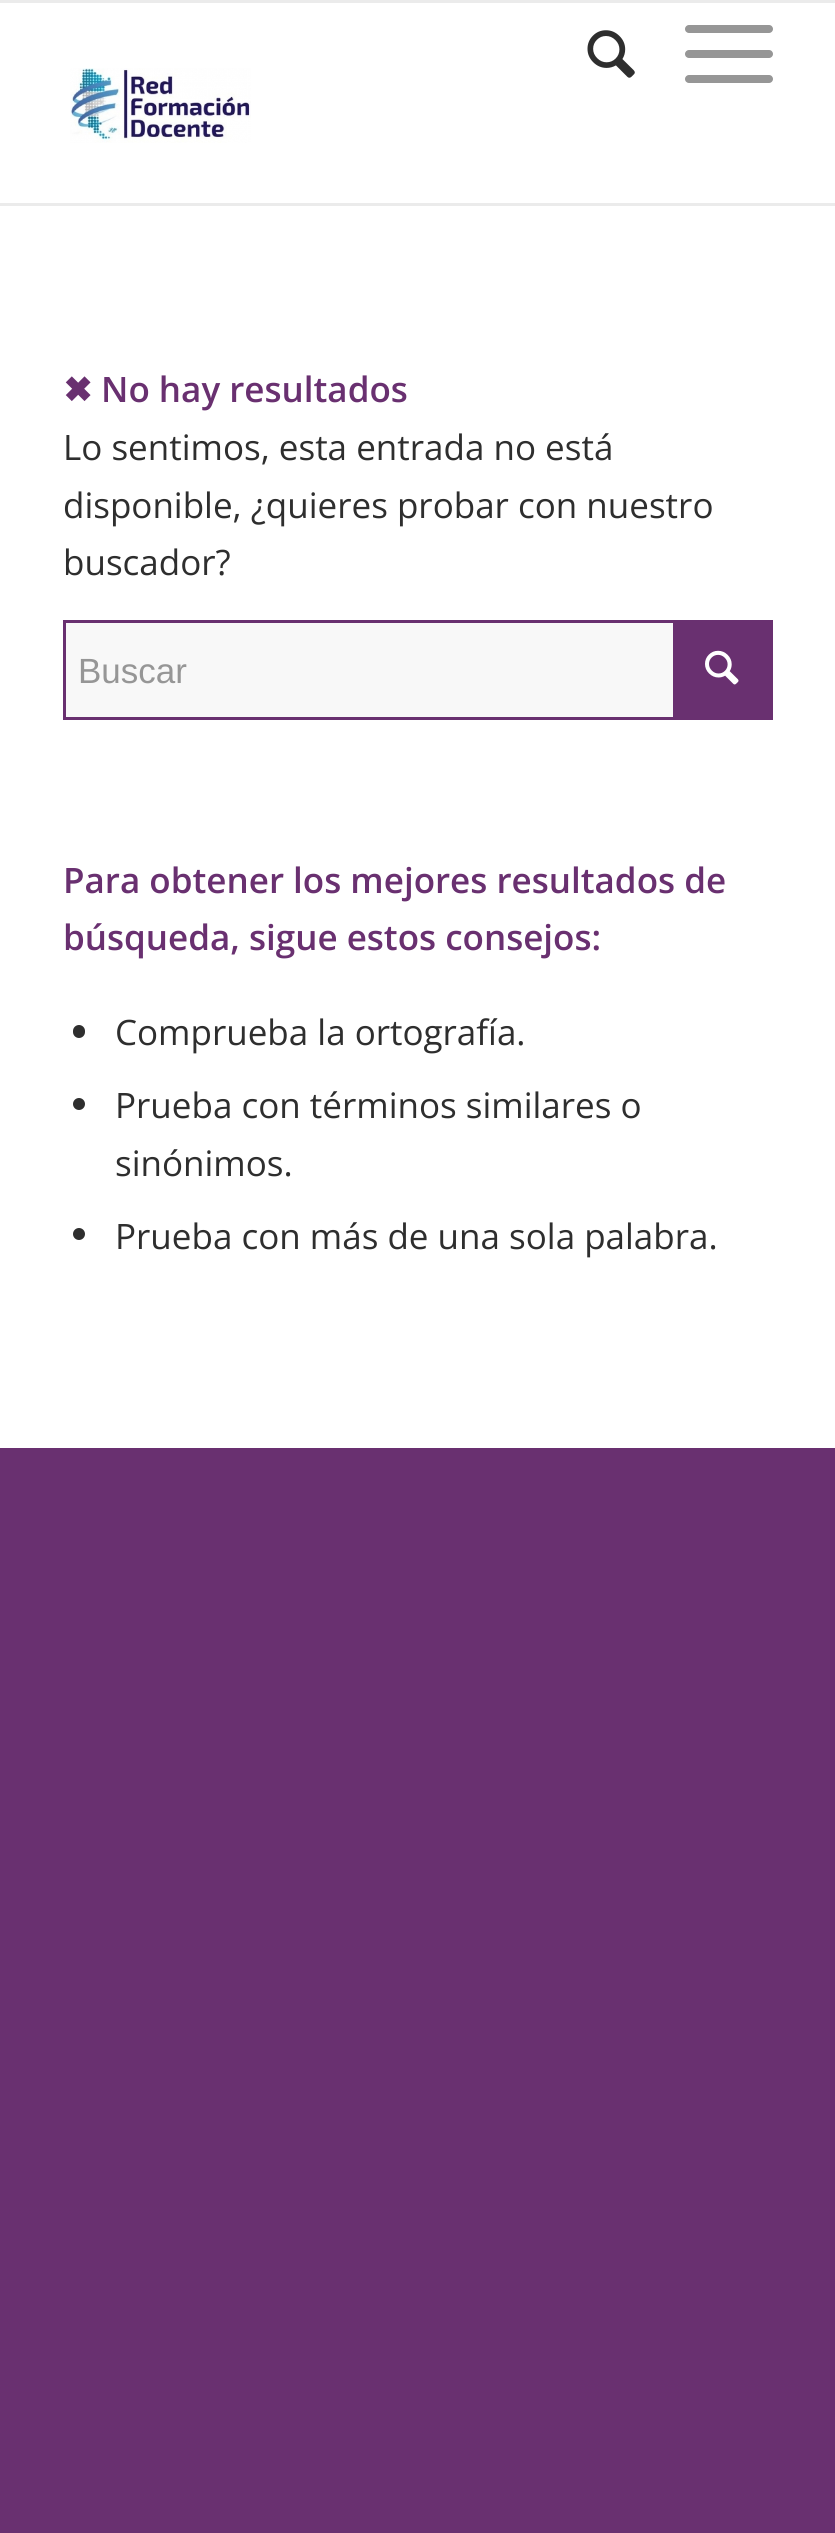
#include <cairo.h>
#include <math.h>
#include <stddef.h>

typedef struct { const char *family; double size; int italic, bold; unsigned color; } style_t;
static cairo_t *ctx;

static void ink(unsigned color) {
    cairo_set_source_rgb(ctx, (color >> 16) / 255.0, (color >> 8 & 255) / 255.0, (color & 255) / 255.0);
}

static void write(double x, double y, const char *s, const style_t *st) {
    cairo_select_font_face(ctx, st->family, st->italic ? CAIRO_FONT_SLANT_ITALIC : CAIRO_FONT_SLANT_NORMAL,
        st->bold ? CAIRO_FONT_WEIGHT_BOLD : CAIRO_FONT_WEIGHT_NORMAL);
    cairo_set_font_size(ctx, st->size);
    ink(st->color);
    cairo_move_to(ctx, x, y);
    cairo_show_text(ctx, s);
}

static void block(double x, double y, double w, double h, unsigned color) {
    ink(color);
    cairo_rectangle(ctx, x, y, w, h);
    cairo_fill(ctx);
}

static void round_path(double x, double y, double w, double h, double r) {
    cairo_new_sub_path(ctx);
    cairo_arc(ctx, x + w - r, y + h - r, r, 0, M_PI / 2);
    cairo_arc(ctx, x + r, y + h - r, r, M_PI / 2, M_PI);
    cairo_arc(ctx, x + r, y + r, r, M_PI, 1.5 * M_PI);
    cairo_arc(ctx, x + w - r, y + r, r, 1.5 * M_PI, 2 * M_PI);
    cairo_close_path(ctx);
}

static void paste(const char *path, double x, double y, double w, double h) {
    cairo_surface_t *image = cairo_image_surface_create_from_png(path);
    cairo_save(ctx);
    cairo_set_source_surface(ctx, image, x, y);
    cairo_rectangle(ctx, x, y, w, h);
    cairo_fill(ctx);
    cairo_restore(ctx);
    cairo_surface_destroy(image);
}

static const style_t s1 = {"DejaVu Sans", 35, 0, 1, 0x693070};
static const style_t s2 = {"Open Sans SemiBold", 35, 0, 0, 0x693070};
static const style_t s3 = {"Open Sans", 35, 0, 0, 0x2e2e2e};
static const style_t s4 = {"Liberation Sans", 35, 0, 0, 0x969696};

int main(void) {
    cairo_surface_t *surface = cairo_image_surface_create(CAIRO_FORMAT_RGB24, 835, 2533);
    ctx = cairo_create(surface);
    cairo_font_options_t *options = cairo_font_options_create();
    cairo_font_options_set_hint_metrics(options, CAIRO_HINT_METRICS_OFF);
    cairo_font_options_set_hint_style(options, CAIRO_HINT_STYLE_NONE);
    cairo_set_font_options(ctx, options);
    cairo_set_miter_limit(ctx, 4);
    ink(0x693070);
    cairo_paint(ctx);
    block(0, 0, 835, 3, 0xebebeb);
    block(0, 203, 835, 3, 0xebebeb);
    block(0, 3, 835, 200, 0xffffff);
    paste("pic1.png", 587, 30, 48, 48);
    ink(0x969696);
    round_path(685, 50, 88, 8, 4);
    cairo_fill(ctx);
    round_path(685, 25, 88, 8, 4);
    cairo_fill(ctx);
    round_path(685, 75, 88, 8, 4);
    cairo_fill(ctx);
    paste("pic2.png", 70, 68, 181, 75);
    block(0, 206, 835, 1242, 0xffffff);
    write(63, 402, "✖", &s1);
    write(101, 402, "No hay resultados", &s2);
    write(63, 460, "Lo sentimos, esta entrada no está", &s3);
    write(63, 518, "disponible, ¿quieres probar con nuestro", &s3);
    write(63, 575, "buscador?", &s3);
    block(66, 623, 607, 94, 0xf8f8f8);
    cairo_rectangle(ctx, 64.5, 621.5, 707, 97);
    ink(0x693070);
    cairo_set_line_width(ctx, 3);
    cairo_stroke(ctx);
    write(78, 683, "Buscar", &s4);
    block(673, 623, 97, 94, 0x693070);
    paste("pic3.png", 705, 650, 34, 35);
    write(63, 893, "Para obtener los mejores resultados de", &s2);
    write(63, 950, "búsqueda, sigue estos consejos:", &s2);
    ink(0x2e2e2e);
    round_path(73, 1025, 12, 13, 6);
    cairo_fill(ctx);
    write(115, 1045, "Comprueba la ortografía.", &s3);
    cairo_new_path(ctx);
    cairo_arc(ctx, 79, 1104, 6, 0, 2 * M_PI);
    cairo_fill(ctx);
    write(115, 1118, "Prueba con términos similares o", &s3);
    write(115, 1176, "sinónimos.", &s3);
    cairo_new_path(ctx);
    cairo_arc(ctx, 79, 1234, 6, 0, 2 * M_PI);
    cairo_fill(ctx);
    write(115, 1249, "Prueba con más de una sola palabra.", &s3);
    cairo_surface_write_to_png(surface, "screenshot.png");
    cairo_font_options_destroy(options);
    cairo_destroy(ctx);
    cairo_surface_destroy(surface);
    return 0;
}
